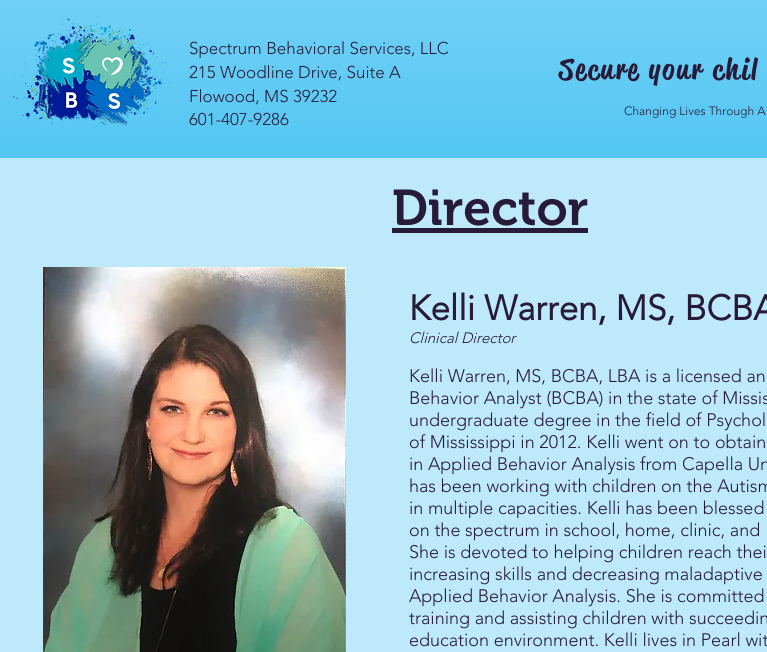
#include <cairo.h>
#include <math.h>
#include <stddef.h>

typedef struct { const char *family; double size; int italic, bold; unsigned color; } style_t;
static cairo_t *ctx;

static void ink(unsigned color) {
    cairo_set_source_rgb(ctx, (color >> 16) / 255.0, (color >> 8 & 255) / 255.0, (color & 255) / 255.0);
}

static void write(double x, double y, const char *s, const style_t *st) {
    cairo_select_font_face(ctx, st->family, st->italic ? CAIRO_FONT_SLANT_ITALIC : CAIRO_FONT_SLANT_NORMAL,
        st->bold ? CAIRO_FONT_WEIGHT_BOLD : CAIRO_FONT_WEIGHT_NORMAL);
    cairo_set_font_size(ctx, st->size);
    ink(st->color);
    cairo_move_to(ctx, x, y);
    cairo_show_text(ctx, s);
}

static void write_spaced(double x, double y, const char *s, double letter, double word) {
    cairo_move_to(ctx, x, y);
    while (*s) {
        char ch[5] = {0};
        int n = 0;
        do ch[n++] = *s++; while ((*s & 0xC0) == 0x80);
        cairo_show_text(ctx, ch);
        cairo_rel_move_to(ctx, letter + word * (*ch == ' '), 0);
    }
}

static void block(double x, double y, double w, double h, unsigned color) {
    ink(color);
    cairo_rectangle(ctx, x, y, w, h);
    cairo_fill(ctx);
}

static void paste(const char *path, double x, double y, double w, double h) {
    cairo_surface_t *image = cairo_image_surface_create_from_png(path);
    cairo_save(ctx);
    cairo_set_source_surface(ctx, image, x, y);
    cairo_rectangle(ctx, x, y, w, h);
    cairo_fill(ctx);
    cairo_restore(ctx);
    cairo_surface_destroy(image);
}

static const style_t s1 = {"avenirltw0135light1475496 Light", 17, 0, 0, 0x281a39};
static const style_t s2 = {"avenirltw0135light1475496 Light", 12, 0, 0, 0x281a39};
static const style_t s3 = {"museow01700 SemiBold", 50, 0, 0, 0x281a39};
static const style_t s4 = {"avenirltw0135light1475496", 35, 0, 1, 0x281a39};
static const style_t s5 = {"avenirltw0135light1475496 Light", 15, 1, 0, 0x281a39};
static const style_t s6 = {"avenirltw0135light1475496 Light", 18, 0, 0, 0x281a39};

int main(void) {
    cairo_surface_t *surface = cairo_image_surface_create(CAIRO_FORMAT_RGB24, 767, 652);
    ctx = cairo_create(surface);
    cairo_font_options_t *options = cairo_font_options_create();
    cairo_font_options_set_hint_metrics(options, CAIRO_HINT_METRICS_OFF);
    cairo_font_options_set_hint_style(options, CAIRO_HINT_STYLE_NONE);
    cairo_set_font_options(ctx, options);
    cairo_set_miter_limit(ctx, 4);
    ink(0xbde9fb);
    cairo_paint(ctx);
    block(0, 0, 767, 158, 0x40c0f2);
    paste("pic1.png", 0, 0, 767, 158);
    paste("pic2.png", 13, 18, 159, 108);
    write(189, 54, "Spectrum Behavioral Services, LLC", &s1);
    write(189, 78, "215 Woodline Drive, Suite A", &s1);
    write(189, 102, "Flowood, MS 39232", &s1);
    write(189, 125, "601-407-9286", &s1);
    cairo_select_font_face(ctx, "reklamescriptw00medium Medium", CAIRO_FONT_SLANT_NORMAL, CAIRO_FONT_WEIGHT_NORMAL);
    cairo_set_font_size(ctx, 29);
    write_spaced(559, 79, "Secure your chil", 2.3, 0);
    write(624, 115, "Changing Lives Through A", &s2);
    write(392, 225, "Director", &s3);
    block(392, 228, 196, 5, 0x281a39);
    paste("pic3.png", 43, 267, 303, 385);
    write(409, 320, "Kelli Warren, MS, BCBA", &s4);
    write(409, 343, "Clinical Director", &s5);
    write(409, 382, "Kelli Warren, MS, BCBA, LBA is a licensed an", &s6);
    write(409, 404, "Behavior Analyst (BCBA) in the state of Missis", &s6);
    write(409, 426, "undergraduate degree in the field of Psychol", &s6);
    write(409, 448, "of Mississippi in 2012. Kelli went on to obtain", &s6);
    write(409, 470, "in Applied Behavior Analysis from Capella Un", &s6);
    write(409, 492, "has been working with children on the Autism", &s6);
    write(409, 514, "in multiple capacities. Kelli has been blessed", &s6);
    write(409, 536, "on the spectrum in school, home, clinic, and", &s6);
    write(409, 558, "She is devoted to helping children reach thei", &s6);
    write(409, 580, "increasing skills and decreasing maladaptive", &s6);
    write(409, 602, "Applied Behavior Analysis. She is committed", &s6);
    write(409, 624, "training and assisting children with succeedin", &s6);
    write(409, 646, "education environment. Kelli lives in Pearl wit", &s6);
    cairo_surface_write_to_png(surface, "screenshot.png");
    cairo_font_options_destroy(options);
    cairo_destroy(ctx);
    cairo_surface_destroy(surface);
    return 0;
}
